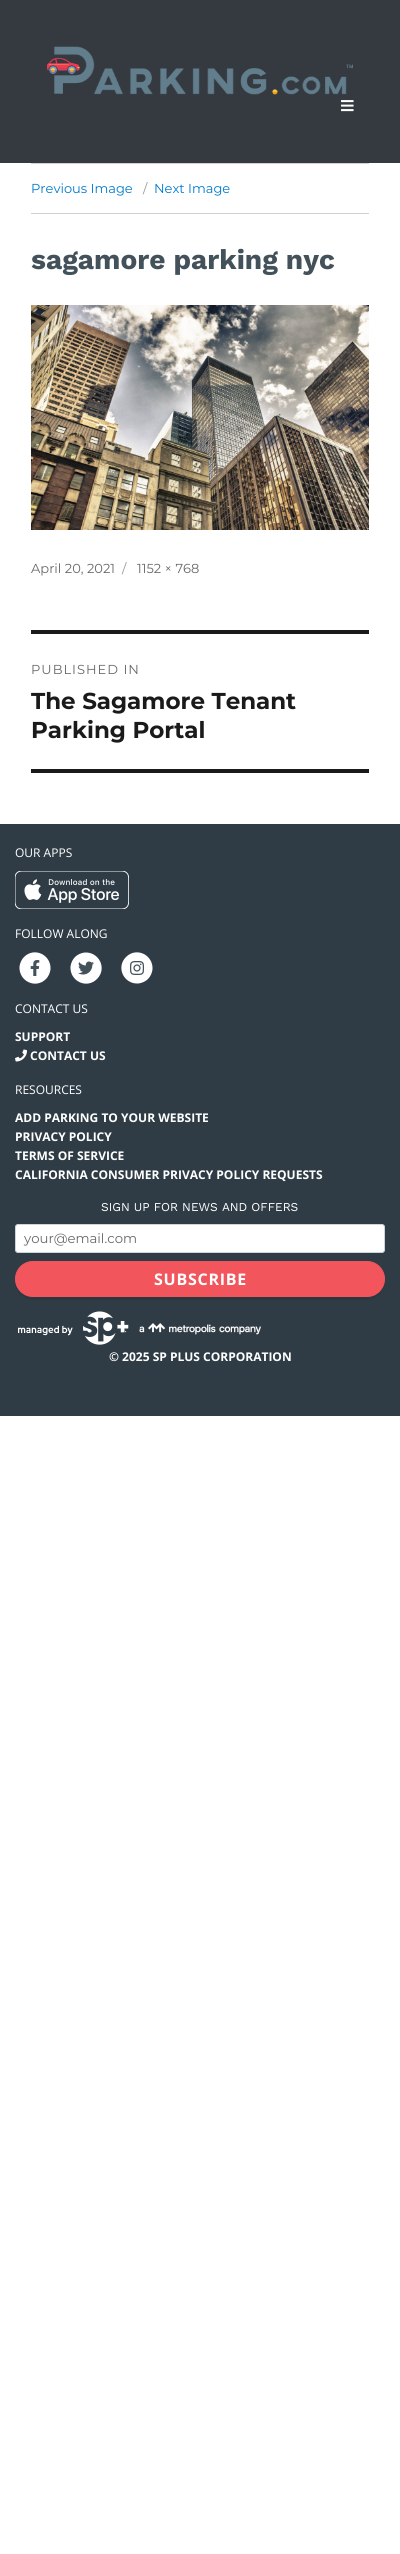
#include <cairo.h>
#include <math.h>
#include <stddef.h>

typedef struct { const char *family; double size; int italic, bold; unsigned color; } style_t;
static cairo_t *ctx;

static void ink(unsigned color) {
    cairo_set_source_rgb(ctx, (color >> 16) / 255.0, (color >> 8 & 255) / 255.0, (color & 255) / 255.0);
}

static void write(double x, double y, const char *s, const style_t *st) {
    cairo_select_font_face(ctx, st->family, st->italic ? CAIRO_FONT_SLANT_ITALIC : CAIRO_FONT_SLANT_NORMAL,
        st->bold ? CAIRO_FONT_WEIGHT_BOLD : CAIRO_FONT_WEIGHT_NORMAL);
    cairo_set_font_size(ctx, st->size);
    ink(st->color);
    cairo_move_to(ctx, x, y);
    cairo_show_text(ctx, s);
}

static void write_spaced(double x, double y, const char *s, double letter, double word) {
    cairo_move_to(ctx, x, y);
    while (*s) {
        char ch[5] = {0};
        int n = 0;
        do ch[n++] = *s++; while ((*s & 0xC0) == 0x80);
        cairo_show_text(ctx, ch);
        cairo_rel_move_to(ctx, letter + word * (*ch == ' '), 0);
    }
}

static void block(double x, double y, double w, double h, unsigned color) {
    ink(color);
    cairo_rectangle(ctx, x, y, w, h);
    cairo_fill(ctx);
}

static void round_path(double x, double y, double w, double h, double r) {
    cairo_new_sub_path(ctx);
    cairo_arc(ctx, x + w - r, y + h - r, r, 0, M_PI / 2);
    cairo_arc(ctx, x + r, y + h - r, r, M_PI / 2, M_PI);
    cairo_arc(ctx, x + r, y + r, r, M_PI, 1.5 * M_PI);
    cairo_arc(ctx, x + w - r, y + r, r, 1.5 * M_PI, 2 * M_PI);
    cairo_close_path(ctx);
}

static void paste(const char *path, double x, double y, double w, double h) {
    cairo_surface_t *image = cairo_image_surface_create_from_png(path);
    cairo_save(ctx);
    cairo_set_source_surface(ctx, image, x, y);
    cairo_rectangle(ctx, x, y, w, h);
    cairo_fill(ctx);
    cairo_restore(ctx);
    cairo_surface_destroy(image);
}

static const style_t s1 = {"Montserrat", 13, 0, 0, 0x007acc};
static const style_t s2 = {"Montserrat", 13, 0, 0, 0x959595};
static const style_t s3 = {"Work Sans", 28, 0, 1, 0x43525a};
static const style_t s4 = {"Montserrat", 13, 0, 0, 0x686868};
static const style_t s5 = {"Montserrat", 23, 0, 1, 0x1a1a1a};
static const style_t s6 = {"Open Sans", 12, 0, 0, 0xffffff};
static const style_t s7 = {"Open Sans", 12, 0, 1, 0xffffff};
static const style_t s8 = {"Work Sans", 12, 0, 0, 0xffffff};
static const style_t s9 = {"Montserrat", 13.25, 0, 0, 0x686868};

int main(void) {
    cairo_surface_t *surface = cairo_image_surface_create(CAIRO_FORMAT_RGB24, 400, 2554);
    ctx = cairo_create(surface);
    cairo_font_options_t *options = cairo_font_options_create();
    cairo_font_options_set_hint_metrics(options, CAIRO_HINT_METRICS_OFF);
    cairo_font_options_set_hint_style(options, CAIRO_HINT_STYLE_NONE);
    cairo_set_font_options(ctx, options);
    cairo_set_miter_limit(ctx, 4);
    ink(0xffffff);
    cairo_paint(ctx);
    block(0, 0, 400, 163, 0x343a40);
    paste("pic1.png", 47, 46, 306, 49);
    paste("pic2.png", 341, 100, 13, 12);
    block(31, 163, 338, 1, 0xd1d1d1);
    block(31, 213, 338, 1, 0xd1d1d1);
    write(31, 193, "Previous Image", &s1);
    write(143, 193, "/", &s2);
    write(154, 193, "Next Image", &s1);
    write(31, 269, "sagamore parking nyc", &s3);
    paste("pic3.png", 31, 305, 338, 225);
    write(31, 573, "April 20, 2021", &s4);
    write(122, 573, "/", &s2);
    write(137, 573, "1152 × 768", &s4);
    block(31, 630, 338, 4, 0x1a1a1a);
    block(31, 769, 338, 4, 0x1a1a1a);
    ink(0x686868);
    write_spaced(31, 674, "PUBLISHED IN", 1, 0);
    write(31, 709, "The Sagamore Tenant", &s5);
    write(31, 738, "Parking Portal", &s5);
    block(0, 824, 400, 592, 0x2f3c45);
    write(15, 857, "OUR APPS", &s6);
    paste("pic4.png", 15, 871, 114, 38);
    write(15, 938, "FOLLOW ALONG", &s6);
    cairo_new_path(ctx);
    cairo_move_to(ctx, 24, 957);
    cairo_curve_to(ctx, 34.5, 946.5, 51.5, 955, 50.5, 969.5);
    cairo_curve_to(ctx, 50, 973, 48.5, 976.5, 46, 979);
    cairo_curve_to(ctx, 35.5, 989.5, 18.5, 981, 19.5, 966.5);
    cairo_curve_to(ctx, 20, 963, 21.5, 959.5, 24, 957);
    cairo_close_path(ctx);
    cairo_fill(ctx);
    paste("pic5.png", 30, 960, 10, 16);
    cairo_new_path(ctx);
    cairo_move_to(ctx, 75, 957);
    cairo_curve_to(ctx, 77.5, 954.5, 81, 953, 84.5, 952.5);
    cairo_curve_to(ctx, 99, 951.5, 107.5, 968.5, 97, 979);
    cairo_curve_to(ctx, 86.5, 989.5, 69.5, 981, 70.5, 966.5);
    cairo_curve_to(ctx, 71, 963, 72.5, 959.5, 75, 957);
    cairo_close_path(ctx);
    cairo_fill(ctx);
    paste("pic6.png", 78, 961, 16, 14);
    cairo_new_path(ctx);
    cairo_move_to(ctx, 126, 957);
    cairo_curve_to(ctx, 136.5, 946.5, 153.5, 955, 152.5, 969.5);
    cairo_curve_to(ctx, 152, 973, 150.5, 976.5, 148, 979);
    cairo_curve_to(ctx, 145.5, 981.5, 142, 983, 138.5, 983.5);
    cairo_curve_to(ctx, 124, 984.5, 115.5, 967.5, 126, 957);
    cairo_close_path(ctx);
    cairo_fill(ctx);
    paste("pic7.png", 130, 961, 14, 14);
    write(15, 1013, "CONTACT US", &s6);
    write(15, 1041, "SUPPORT", &s7);
    paste("pic8.png", 15, 1049, 12, 13);
    write(30, 1060, "CONTACT US", &s7);
    write(15, 1094, "RESOURCES", &s6);
    write(15, 1122, "ADD PARKING TO YOUR WEBSITE", &s7);
    write(15, 1141, "PRIVACY POLICY", &s7);
    write(15, 1160, "TERMS OF SERVICE", &s7);
    write(15, 1179, "CALIFORNIA CONSUMER PRIVACY POLICY REQUESTS", &s7);
    write(101, 1211, "SIGN UP FOR NEWS AND OFFERS", &s8);
    round_path(15.5, 1224.5, 369, 28, 2.5);
    cairo_fill_preserve(ctx);
    ink(0xced4da);
    cairo_set_line_width(ctx, 1);
    cairo_stroke(ctx);
    write(24, 1243, "your@email.com", &s9);
    ink(0x2c3840);
    cairo_new_path(ctx);
    cairo_move_to(ctx, 15, 1280);
    cairo_curve_to(ctx, 14, 1291, 23, 1300, 33, 1300);
    cairo_line_to(ctx, 367, 1300);
    cairo_curve_to(ctx, 377, 1300, 386, 1291, 385, 1280);
    cairo_curve_to(ctx, 384, 1290, 376, 1297, 367, 1297);
    cairo_line_to(ctx, 33, 1297);
    cairo_curve_to(ctx, 24, 1297, 16, 1290, 15, 1280);
    cairo_close_path(ctx);
    cairo_fill(ctx);
    ink(0xf2555c);
    round_path(15.5, 1261.5, 369, 35, 17.5);
    cairo_fill_preserve(ctx);
    cairo_stroke(ctx);
    cairo_select_font_face(ctx, "Open Sans", CAIRO_FONT_SLANT_NORMAL, CAIRO_FONT_WEIGHT_BOLD);
    cairo_set_font_size(ctx, 16);
    ink(0xffffff);
    write_spaced(154, 1285, "SUBSCRIBE", 0.75, 0);
    paste("pic9.png", 18, 1311, 243, 34);
    write(109, 1361, "© 2025 SP PLUS CORPORATION", &s7);
    cairo_surface_write_to_png(surface, "screenshot.png");
    cairo_font_options_destroy(options);
    cairo_destroy(ctx);
    cairo_surface_destroy(surface);
    return 0;
}
